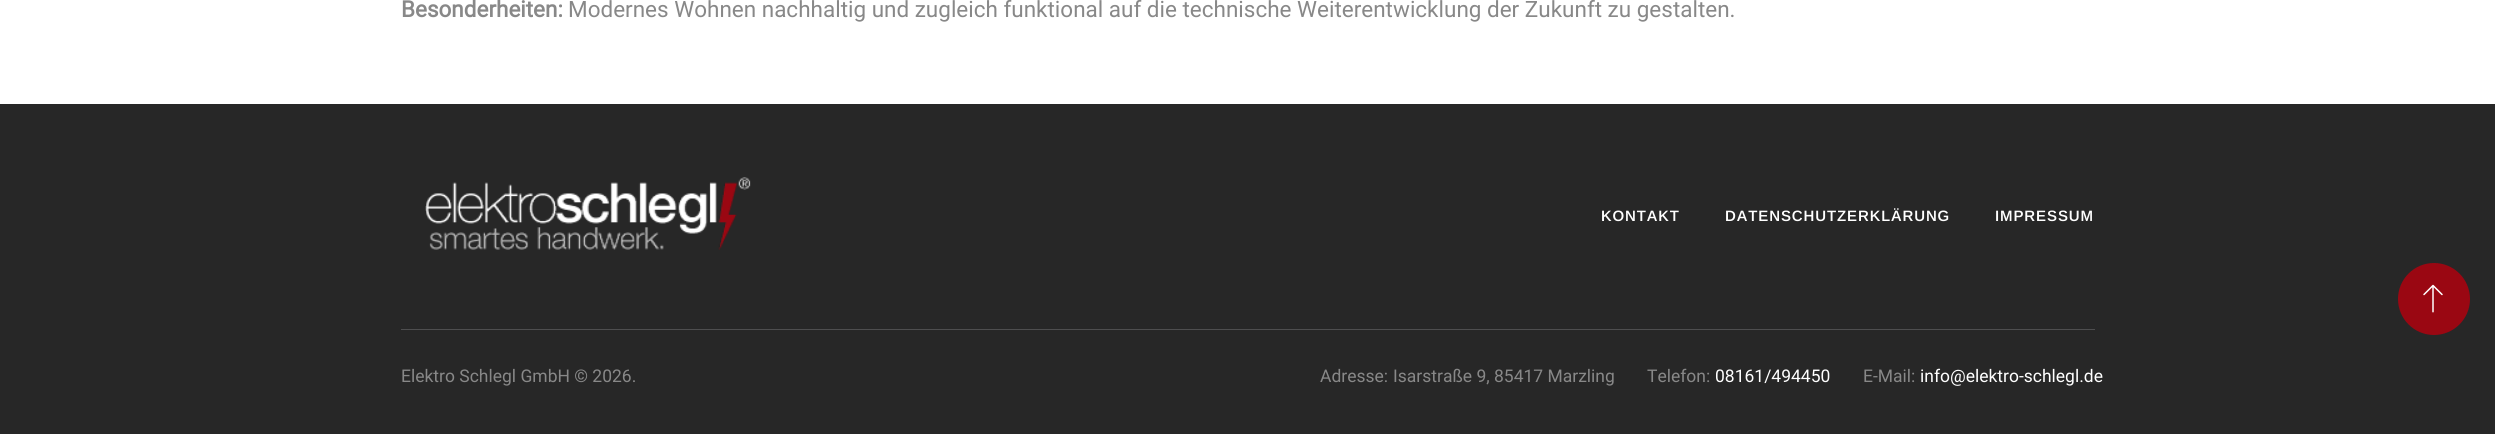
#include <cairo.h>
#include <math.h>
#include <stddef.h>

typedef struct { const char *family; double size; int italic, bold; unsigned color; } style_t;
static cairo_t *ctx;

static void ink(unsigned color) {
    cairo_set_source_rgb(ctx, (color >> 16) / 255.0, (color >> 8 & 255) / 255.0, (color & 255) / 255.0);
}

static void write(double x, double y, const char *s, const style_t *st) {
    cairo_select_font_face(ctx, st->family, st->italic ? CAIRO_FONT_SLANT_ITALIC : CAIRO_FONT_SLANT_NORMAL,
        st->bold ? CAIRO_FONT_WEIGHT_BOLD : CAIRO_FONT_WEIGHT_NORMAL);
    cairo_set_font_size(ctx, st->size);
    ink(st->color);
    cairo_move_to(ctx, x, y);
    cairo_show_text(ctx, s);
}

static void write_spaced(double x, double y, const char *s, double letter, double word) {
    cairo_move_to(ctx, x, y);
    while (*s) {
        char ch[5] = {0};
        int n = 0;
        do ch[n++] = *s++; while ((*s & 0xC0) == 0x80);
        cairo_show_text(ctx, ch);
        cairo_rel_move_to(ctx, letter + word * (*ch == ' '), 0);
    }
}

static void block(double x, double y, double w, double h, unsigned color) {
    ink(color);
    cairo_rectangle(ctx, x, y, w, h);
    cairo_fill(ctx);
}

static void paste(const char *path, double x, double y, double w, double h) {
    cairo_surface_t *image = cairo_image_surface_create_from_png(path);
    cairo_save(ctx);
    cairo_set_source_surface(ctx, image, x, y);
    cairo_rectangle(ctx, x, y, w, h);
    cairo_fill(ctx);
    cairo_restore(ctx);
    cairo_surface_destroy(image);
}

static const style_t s1 = {"Roboto", 22.5, 0, 1, 0x888888};
static const style_t s2 = {"Roboto", 22.5, 0, 0, 0x888888};
static const style_t s3 = {"Roboto", 17.5, 0, 0, 0x888888};
static const style_t s4 = {"Roboto", 17.5, 0, 0, 0xffffff};

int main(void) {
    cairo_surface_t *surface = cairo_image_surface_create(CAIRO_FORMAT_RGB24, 2495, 434);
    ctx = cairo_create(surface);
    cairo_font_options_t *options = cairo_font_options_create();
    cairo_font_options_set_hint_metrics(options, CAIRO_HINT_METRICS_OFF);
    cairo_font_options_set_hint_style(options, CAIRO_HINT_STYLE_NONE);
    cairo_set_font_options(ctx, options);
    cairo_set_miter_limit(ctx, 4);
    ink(0xffffff);
    cairo_paint(ctx);
    write(401, 17, "Besonderheiten:", &s1);
    write(568, 17, "Modernes Wohnen nachhaltig und zugleich funktional auf die technische Weiterentwicklung der Zukunft zu gestalten.", &s2);
    block(0, 104, 2495, 330, 0x272727);
    paste("pic1.png", 425, 177, 326, 73);
    cairo_select_font_face(ctx, "Arimo SemiBold", CAIRO_FONT_SLANT_NORMAL, CAIRO_FONT_WEIGHT_NORMAL);
    cairo_set_font_size(ctx, 15);
    ink(0xffffff);
    write_spaced(1601, 221, "KONTAKT", 0.9, 0);
    write_spaced(1725, 221, "DATENSCHUTZERKLÄRUNG", 0.9, 0);
    write_spaced(1995, 221, "IMPRESSUM", 0.9, 0);
    block(401, 329, 1694, 1, 0x4e4e4f);
    write(401, 382, "Elektro Schlegl GmbH © 2026.", &s3);
    write(1320, 382, "Adresse:", &s3);
    write(1393, 382, "Isarstraße 9, 85417 Marzling", &s3);
    write(1647, 382, "Telefon:", &s3);
    write(1715, 382, "08161/494450", &s4);
    write(1863, 382, "E-Mail:", &s3);
    write(1920, 382, "info@elektro-schlegl.de", &s4);
    ink(0x9a0712);
    cairo_new_path(ctx);
    cairo_arc(ctx, 2434, 299, 36, 0, 2 * M_PI);
    cairo_fill(ctx);
    paste("pic2.png", 2423, 284, 20, 29);
    cairo_surface_write_to_png(surface, "screenshot.png");
    cairo_font_options_destroy(options);
    cairo_destroy(ctx);
    cairo_surface_destroy(surface);
    return 0;
}
